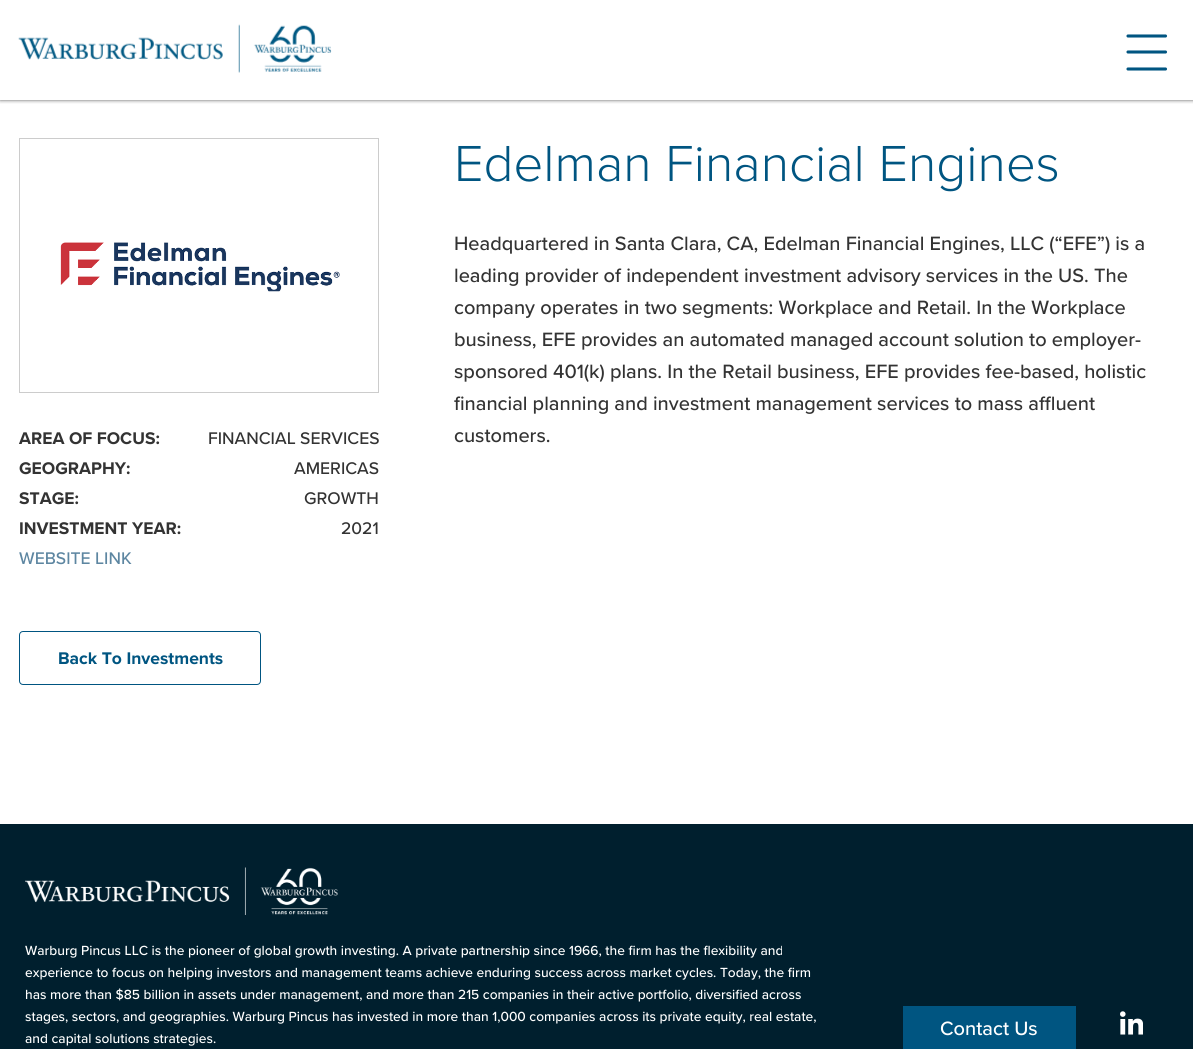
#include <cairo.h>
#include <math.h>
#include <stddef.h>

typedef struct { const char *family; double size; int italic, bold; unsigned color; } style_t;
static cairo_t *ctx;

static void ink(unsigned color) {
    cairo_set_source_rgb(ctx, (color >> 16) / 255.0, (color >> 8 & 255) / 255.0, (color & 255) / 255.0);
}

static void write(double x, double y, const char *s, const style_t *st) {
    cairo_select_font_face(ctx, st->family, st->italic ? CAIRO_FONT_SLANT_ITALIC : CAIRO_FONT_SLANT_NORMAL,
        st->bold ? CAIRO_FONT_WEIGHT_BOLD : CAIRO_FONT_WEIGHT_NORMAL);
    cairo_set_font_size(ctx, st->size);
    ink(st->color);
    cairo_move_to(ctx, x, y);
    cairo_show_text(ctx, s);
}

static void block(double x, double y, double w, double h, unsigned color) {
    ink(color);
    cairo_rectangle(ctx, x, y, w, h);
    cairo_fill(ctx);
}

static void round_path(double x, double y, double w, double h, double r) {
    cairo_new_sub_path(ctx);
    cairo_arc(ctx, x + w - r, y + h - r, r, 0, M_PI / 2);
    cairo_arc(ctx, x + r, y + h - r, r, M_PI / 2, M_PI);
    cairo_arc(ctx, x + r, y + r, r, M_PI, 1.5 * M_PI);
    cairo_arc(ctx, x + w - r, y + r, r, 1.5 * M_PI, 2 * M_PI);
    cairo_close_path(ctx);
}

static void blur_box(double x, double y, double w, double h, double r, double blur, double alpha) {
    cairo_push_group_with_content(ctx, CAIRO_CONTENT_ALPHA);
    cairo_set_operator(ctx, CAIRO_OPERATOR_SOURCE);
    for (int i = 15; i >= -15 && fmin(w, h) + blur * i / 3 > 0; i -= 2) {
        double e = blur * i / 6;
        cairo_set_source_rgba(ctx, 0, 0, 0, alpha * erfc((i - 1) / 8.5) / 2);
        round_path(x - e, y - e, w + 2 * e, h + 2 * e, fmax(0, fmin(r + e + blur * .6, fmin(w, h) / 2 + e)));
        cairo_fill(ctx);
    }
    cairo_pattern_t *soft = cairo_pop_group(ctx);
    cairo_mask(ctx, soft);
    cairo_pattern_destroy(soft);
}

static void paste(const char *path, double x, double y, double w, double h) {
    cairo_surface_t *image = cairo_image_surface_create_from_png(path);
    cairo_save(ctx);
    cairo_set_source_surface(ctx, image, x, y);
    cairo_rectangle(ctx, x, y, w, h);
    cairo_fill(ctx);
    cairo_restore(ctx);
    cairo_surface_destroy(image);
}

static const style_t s1 = {"Proxima Nova Light", 52.5, 0, 0, 0x005581};
static const style_t s2 = {"Proxima Nova Medium", 20, 0, 0, 0x333333};
static const style_t s3 = {"Proxima Nova", 17.5, 0, 1, 0x333333};
static const style_t s4 = {"Proxima Nova Medium", 17.5, 0, 0, 0x333333};
static const style_t s5 = {"Proxima Nova Medium", 17.5, 0, 0, 0x5d86a1};
static const style_t s6 = {"Proxima Nova", 17.5, 0, 1, 0x005581};
static const style_t s7 = {"Proxima Nova Medium", 13.75, 0, 0, 0xffffff};
static const style_t s8 = {"Proxima Nova Medium", 20, 0, 0, 0xffffff};

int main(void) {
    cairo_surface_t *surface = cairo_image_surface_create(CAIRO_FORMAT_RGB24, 1193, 1049);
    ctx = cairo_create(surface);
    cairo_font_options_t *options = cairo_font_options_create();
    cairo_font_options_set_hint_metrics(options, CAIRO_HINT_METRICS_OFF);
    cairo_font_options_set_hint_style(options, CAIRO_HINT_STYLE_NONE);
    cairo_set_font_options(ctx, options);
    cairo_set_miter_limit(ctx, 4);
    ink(0xffffff);
    cairo_paint(ctx);
    cairo_save(ctx);
    cairo_rectangle(ctx, 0, 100, 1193, 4);
    cairo_clip(ctx);
    ink(0x000000);
    blur_box(0, 0, 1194, 100, 0, 2, 0.65);
    cairo_restore(ctx);
    paste("pic1.png", 18, 24, 314, 49);
    cairo_new_path(ctx);
    cairo_move_to(ctx, 1128, 36);
    cairo_line_to(ctx, 1165.5, 36);
    cairo_move_to(ctx, 1128, 52);
    cairo_line_to(ctx, 1165.5, 52);
    cairo_move_to(ctx, 1128, 69);
    cairo_line_to(ctx, 1165.5, 69);
    ink(0x005581);
    cairo_set_line_width(ctx, 3.1);
    cairo_set_line_cap(ctx, CAIRO_LINE_CAP_ROUND);
    cairo_stroke(ctx);
    write(454, 181, "Edelman Financial Engines", &s1);
    write(454, 250, "Headquartered in Santa Clara, CA, Edelman Financial Engines, LLC (“EFE”) is a", &s2);
    write(454, 282, "leading provider of independent investment advisory services in the US. The", &s2);
    write(454, 314, "company operates in two segments: Workplace and Retail. In the Workplace", &s2);
    write(454, 346, "business, EFE provides an automated managed account solution to employer-", &s2);
    write(454, 378, "sponsored 401(k) plans. In the Retail business, EFE provides fee-based, holistic", &s2);
    write(454, 410, "financial planning and investment management services to mass affluent", &s2);
    write(454, 442, "customers.", &s2);
    cairo_rectangle(ctx, 19.5, 138.5, 359, 254);
    ink(0xcccccc);
    cairo_set_line_width(ctx, 1);
    cairo_set_line_cap(ctx, CAIRO_LINE_CAP_BUTT);
    cairo_stroke(ctx);
    paste("pic2.png", 60, 242, 280, 50);
    write(19, 444, "AREA OF FOCUS:", &s3);
    write(208, 444, "FINANCIAL SERVICES", &s4);
    write(19, 474, "GEOGRAPHY:", &s3);
    write(294, 474, "AMERICAS", &s4);
    write(19, 504, "STAGE:", &s3);
    write(304, 504, "GROWTH", &s4);
    write(19, 534, "INVESTMENT YEAR:", &s3);
    write(341, 534, "2021", &s4);
    write(19, 564, "WEBSITE LINK", &s5);
    round_path(19.5, 631.5, 241, 53, 3.5);
    ink(0x005581);
    cairo_stroke(ctx);
    write(58, 664, "Back To Investments", &s6);
    block(0, 824, 1193, 225, 0x001f2e);
    paste("pic3.png", 25, 867, 313, 48);
    write(25, 955, "Warburg Pincus LLC is the pioneer of global growth investing. A private partnership since 1966, the firm has the flexibility and", &s7);
    write(25, 977, "experience to focus on helping investors and management teams achieve enduring success across market cycles. Today, the firm", &s7);
    write(25, 999, "has more than $85 billion in assets under management, and more than 215 companies in their active portfolio, diversified across", &s7);
    write(25, 1021, "stages, sectors, and geographies. Warburg Pincus has invested in more than 1,000 companies across its private equity, real estate,", &s7);
    write(25, 1043, "and capital solutions strategies.", &s7);
    block(903, 1006, 173, 43, 0x005581);
    write(940, 1035, "Contact Us", &s8);
    paste("pic4.png", 1120, 1011, 23, 24);
    cairo_surface_write_to_png(surface, "screenshot.png");
    cairo_font_options_destroy(options);
    cairo_destroy(ctx);
    cairo_surface_destroy(surface);
    return 0;
}
